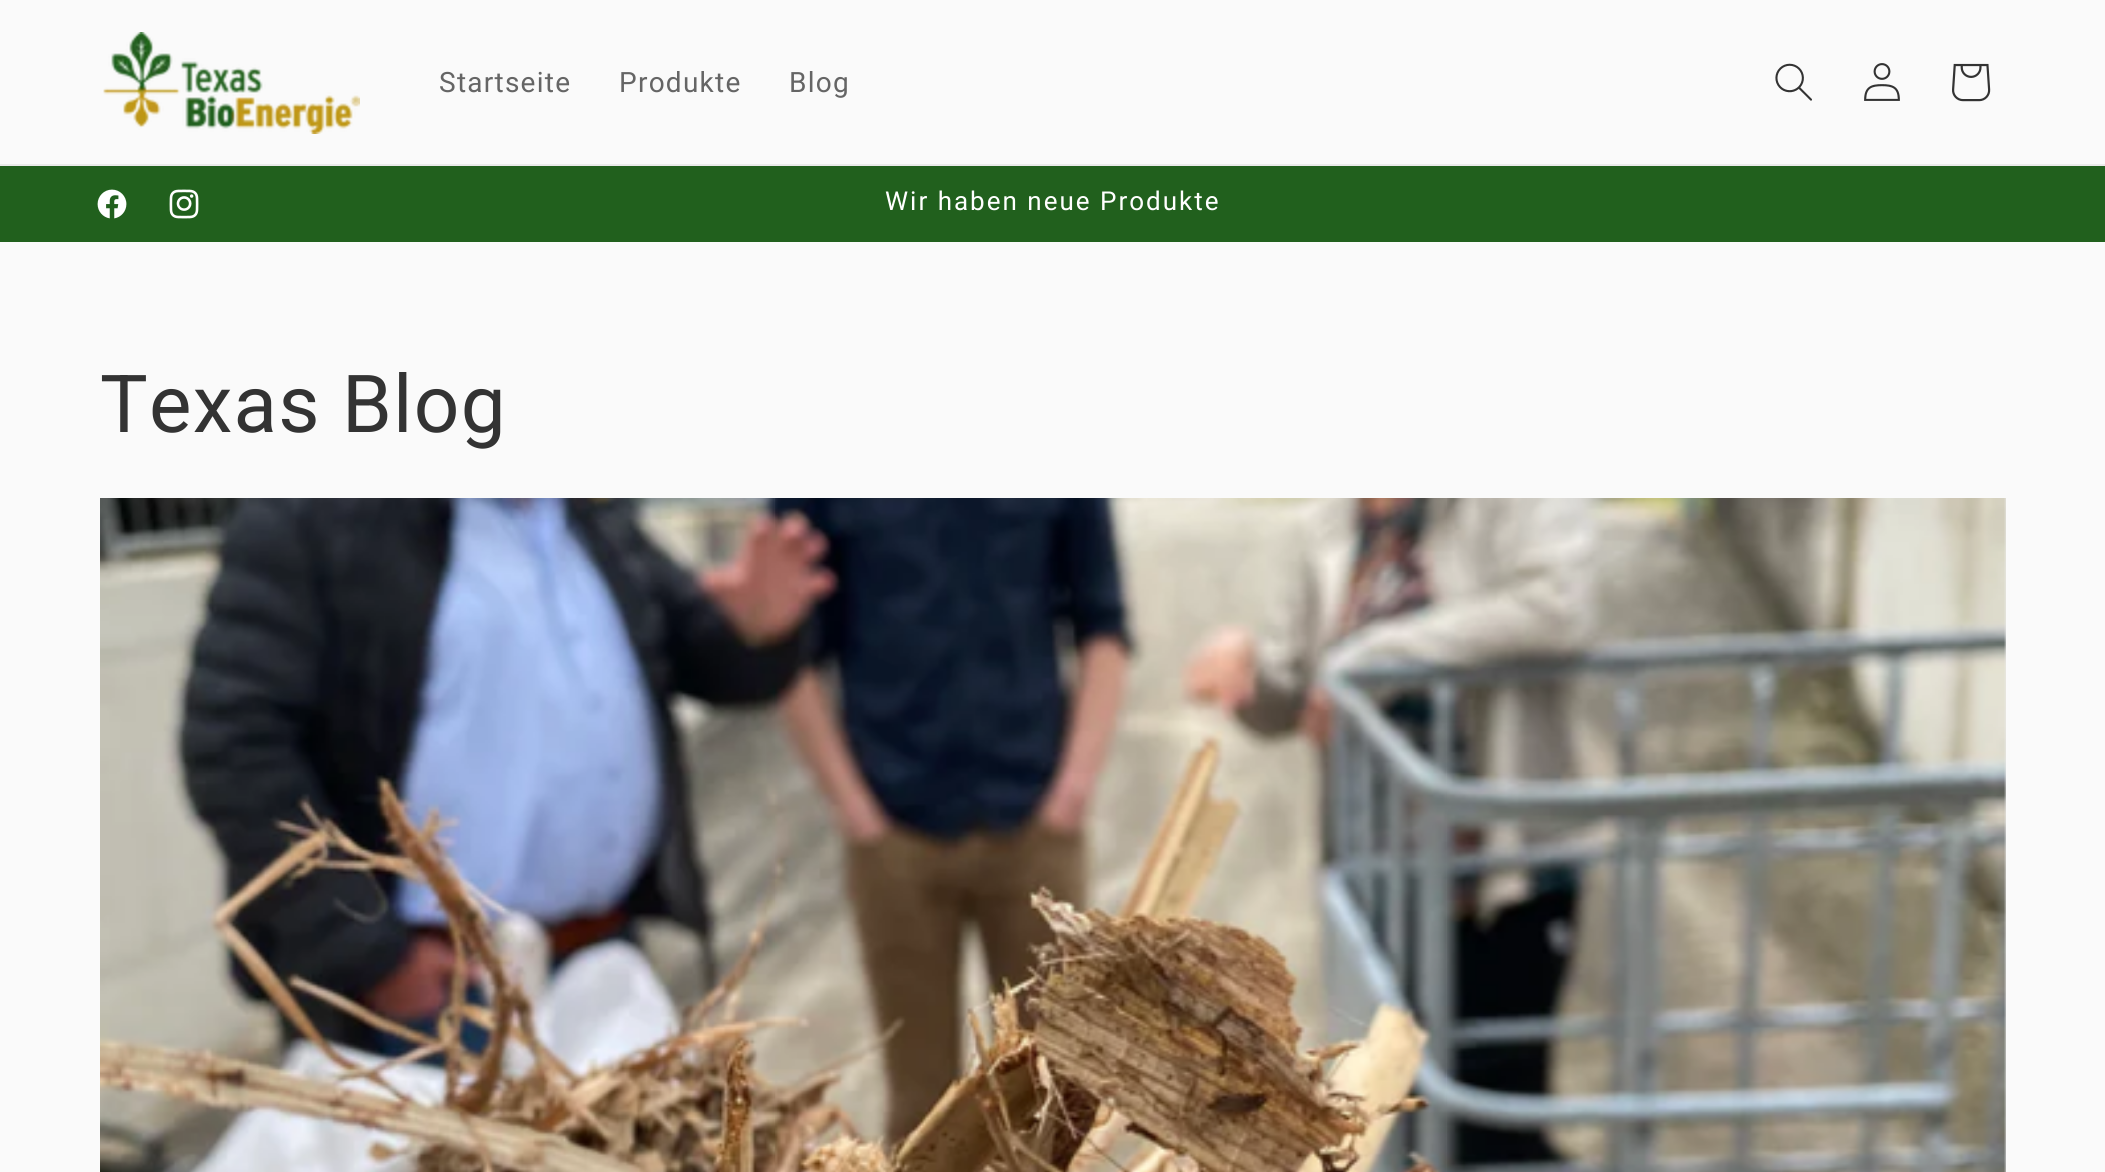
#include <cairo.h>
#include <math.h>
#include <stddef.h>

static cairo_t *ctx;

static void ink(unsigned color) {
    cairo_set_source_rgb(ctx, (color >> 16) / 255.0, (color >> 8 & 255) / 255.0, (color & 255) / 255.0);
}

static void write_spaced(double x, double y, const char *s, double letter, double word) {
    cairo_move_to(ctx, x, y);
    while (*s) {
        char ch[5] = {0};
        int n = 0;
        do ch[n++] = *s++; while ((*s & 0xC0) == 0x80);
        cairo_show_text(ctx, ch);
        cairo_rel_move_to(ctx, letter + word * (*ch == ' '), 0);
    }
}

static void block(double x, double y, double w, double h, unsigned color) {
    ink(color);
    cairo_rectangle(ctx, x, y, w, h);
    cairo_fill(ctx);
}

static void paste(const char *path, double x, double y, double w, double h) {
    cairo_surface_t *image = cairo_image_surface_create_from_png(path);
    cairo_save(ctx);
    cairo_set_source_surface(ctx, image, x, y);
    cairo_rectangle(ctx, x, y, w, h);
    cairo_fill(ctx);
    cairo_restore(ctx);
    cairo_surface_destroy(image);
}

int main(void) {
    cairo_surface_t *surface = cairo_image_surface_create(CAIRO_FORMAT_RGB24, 2105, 1172);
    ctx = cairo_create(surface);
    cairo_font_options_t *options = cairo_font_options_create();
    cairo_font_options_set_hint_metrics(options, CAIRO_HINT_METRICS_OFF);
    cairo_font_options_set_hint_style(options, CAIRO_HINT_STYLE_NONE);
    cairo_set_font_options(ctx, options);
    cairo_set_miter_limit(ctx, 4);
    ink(0xfafafa);
    cairo_paint(ctx);
    block(0, 164, 2105, 2, 0xeaeaea);
    paste("pic1.png", 103, 32, 257, 102);
    cairo_select_font_face(ctx, "Roboto", CAIRO_FONT_SLANT_NORMAL, CAIRO_FONT_WEIGHT_NORMAL);
    cairo_set_font_size(ctx, 28);
    ink(0x656565);
    write_spaced(439, 92, "Startseite", 1.25, 0);
    write_spaced(619, 92, "Produkte", 1.25, 0);
    write_spaced(789, 92, "Blog", 1.25, 0);
    paste("pic2.png", 1775, 63, 37, 38);
    paste("pic3.png", 1864, 63, 36, 38);
    paste("pic4.png", 1952, 63, 39, 39);
    block(0, 166, 2105, 76, 0x21601d);
    paste("pic5.png", 97, 189, 30, 30);
    paste("pic6.png", 169, 189, 30, 30);
    cairo_set_font_size(ctx, 26);
    ink(0xffffff);
    write_spaced(885, 210, "Wir haben neue Produkte", 2, 0);
    cairo_set_font_size(ctx, 80);
    ink(0x333333);
    write_spaced(100, 432, "Texas Blog", 1.25, 0);
    block(2004, 498, 2, 674, 0xebebeb);
    paste("pic7.png", 100, 498, 1906, 674);
    cairo_surface_write_to_png(surface, "screenshot.png");
    cairo_font_options_destroy(options);
    cairo_destroy(ctx);
    cairo_surface_destroy(surface);
    return 0;
}
